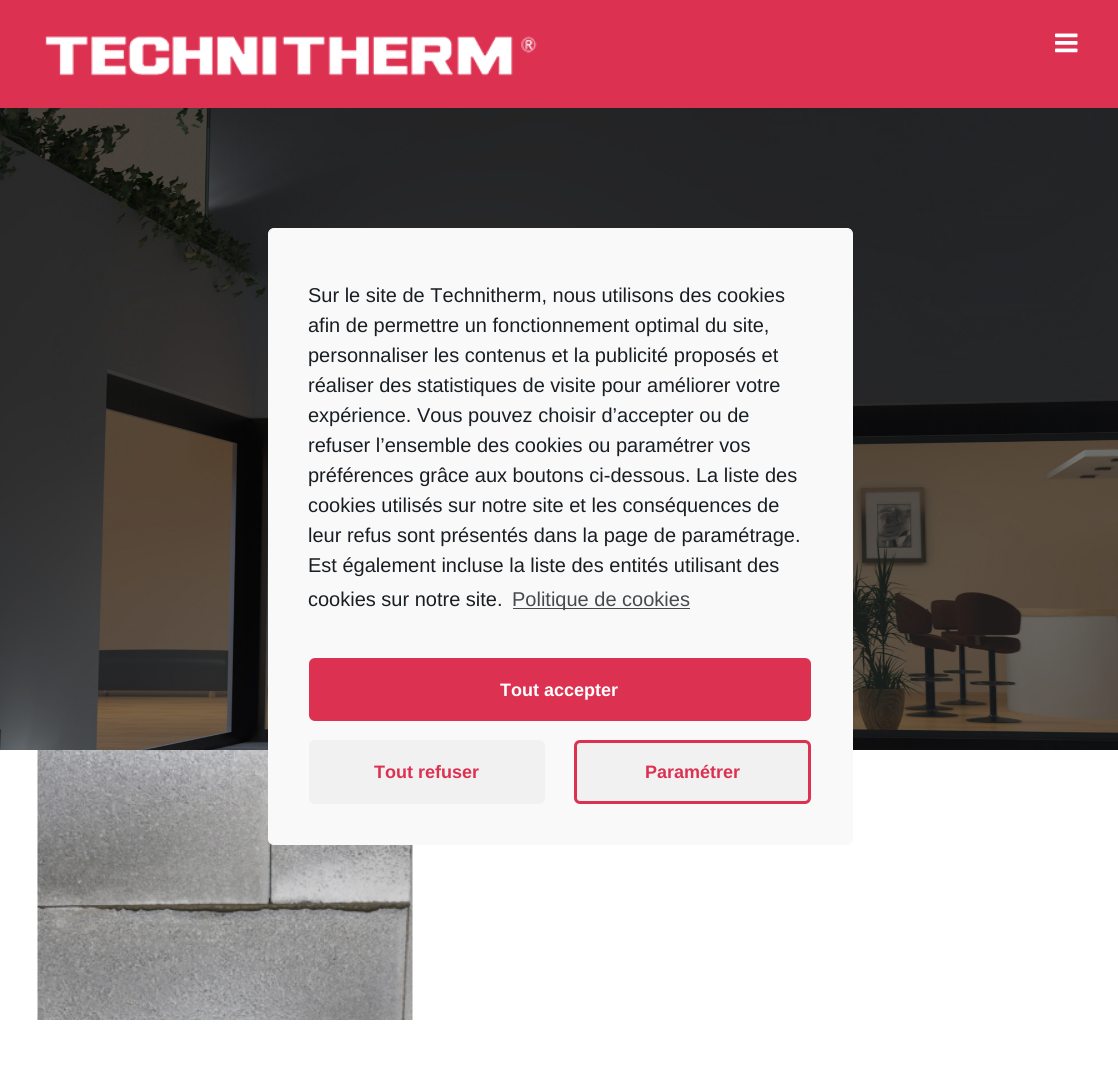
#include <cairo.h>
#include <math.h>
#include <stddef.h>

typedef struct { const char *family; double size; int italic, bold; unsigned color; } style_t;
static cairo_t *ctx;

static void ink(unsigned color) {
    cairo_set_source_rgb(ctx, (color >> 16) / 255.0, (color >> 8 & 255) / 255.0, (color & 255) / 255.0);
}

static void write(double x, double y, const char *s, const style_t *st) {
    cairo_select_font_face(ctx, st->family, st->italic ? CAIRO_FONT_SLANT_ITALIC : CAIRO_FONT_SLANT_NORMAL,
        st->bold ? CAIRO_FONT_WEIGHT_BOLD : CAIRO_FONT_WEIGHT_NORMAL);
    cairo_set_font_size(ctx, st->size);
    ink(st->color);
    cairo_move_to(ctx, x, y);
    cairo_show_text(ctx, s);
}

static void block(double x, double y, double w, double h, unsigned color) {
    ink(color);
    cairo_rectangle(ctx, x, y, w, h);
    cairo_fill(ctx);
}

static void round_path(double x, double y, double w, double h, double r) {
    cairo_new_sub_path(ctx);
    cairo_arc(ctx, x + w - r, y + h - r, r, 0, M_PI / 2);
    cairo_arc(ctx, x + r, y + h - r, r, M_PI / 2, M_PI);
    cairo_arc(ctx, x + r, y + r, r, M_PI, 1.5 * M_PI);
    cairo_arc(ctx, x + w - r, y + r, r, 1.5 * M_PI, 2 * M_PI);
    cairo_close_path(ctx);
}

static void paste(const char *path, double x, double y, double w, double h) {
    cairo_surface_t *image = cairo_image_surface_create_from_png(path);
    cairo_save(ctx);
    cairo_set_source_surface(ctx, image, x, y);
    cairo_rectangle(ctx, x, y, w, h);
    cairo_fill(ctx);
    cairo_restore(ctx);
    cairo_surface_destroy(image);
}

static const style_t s1 = {"Liberation Sans", 20, 0, 0, 0x191e23};
static const style_t s2 = {"Liberation Sans", 20, 0, 0, 0x464a4e};
static const style_t s3 = {"Liberation Sans", 18, 0, 1, 0xffffff};
static const style_t s4 = {"Liberation Sans", 18, 0, 1, 0xdd3152};

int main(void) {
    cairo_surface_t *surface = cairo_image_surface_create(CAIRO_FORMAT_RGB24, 1118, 1072);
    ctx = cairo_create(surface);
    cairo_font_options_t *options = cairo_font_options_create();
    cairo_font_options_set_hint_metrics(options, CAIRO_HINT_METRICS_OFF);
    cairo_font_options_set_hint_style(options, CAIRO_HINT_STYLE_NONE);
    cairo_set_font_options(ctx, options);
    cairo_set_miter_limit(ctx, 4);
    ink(0xffffff);
    cairo_paint(ctx);
    block(0, 0, 1118, 108, 0xdd3152);
    paste("pic1.png", 45, 36, 492, 40);
    paste("pic2.png", 1055, 33, 23, 20);
    paste("pic3.png", 0, 108, 1118, 642);
    paste("pic4.png", 37, 750, 376, 270);
    ink(0xf9f9f9);
    round_path(268.5, 228.5, 584, 616, 5.5);
    cairo_fill_preserve(ctx);
    cairo_set_line_width(ctx, 1);
    cairo_stroke(ctx);
    write(308, 302, "Sur le site de Technitherm, nous utilisons des cookies", &s1);
    write(308, 332, "afin de permettre un fonctionnement optimal du site,", &s1);
    write(308, 362, "personnaliser les contenus et la publicité proposés et", &s1);
    write(308, 392, "réaliser des statistiques de visite pour améliorer votre", &s1);
    write(308, 422, "expérience. Vous pouvez choisir d’accepter ou de", &s1);
    write(308, 452, "refuser l’ensemble des cookies ou paramétrer vos", &s1);
    write(308, 482, "préférences grâce aux boutons ci-dessous. La liste des", &s1);
    write(308, 512, "cookies utilisés sur notre site et les conséquences de", &s1);
    write(308, 542, "leur refus sont présentés dans la page de paramétrage.", &s1);
    write(308, 572, "Est également incluse la liste des entités utilisant des", &s1);
    write(308, 606, "cookies sur notre site.", &s1);
    block(513, 608, 177, 1, 0x464a4e);
    write(512, 606, "Politique de cookies", &s2);
    ink(0xdd3152);
    round_path(310.5, 659.5, 499, 60, 4.5);
    cairo_fill_preserve(ctx);
    cairo_set_line_width(ctx, 3);
    cairo_stroke(ctx);
    write(500, 696, "Tout accepter", &s3);
    ink(0xf1f1f1);
    round_path(309, 740, 236, 64, 6);
    cairo_fill(ctx);
    write(374, 778, "Tout refuser", &s4);
    ink(0xf1f1f1);
    round_path(575.5, 741.5, 234, 61, 4.5);
    cairo_fill_preserve(ctx);
    ink(0xdd3152);
    cairo_stroke(ctx);
    write(645, 778, "Paramétrer", &s4);
    cairo_surface_write_to_png(surface, "screenshot.png");
    cairo_font_options_destroy(options);
    cairo_destroy(ctx);
    cairo_surface_destroy(surface);
    return 0;
}
